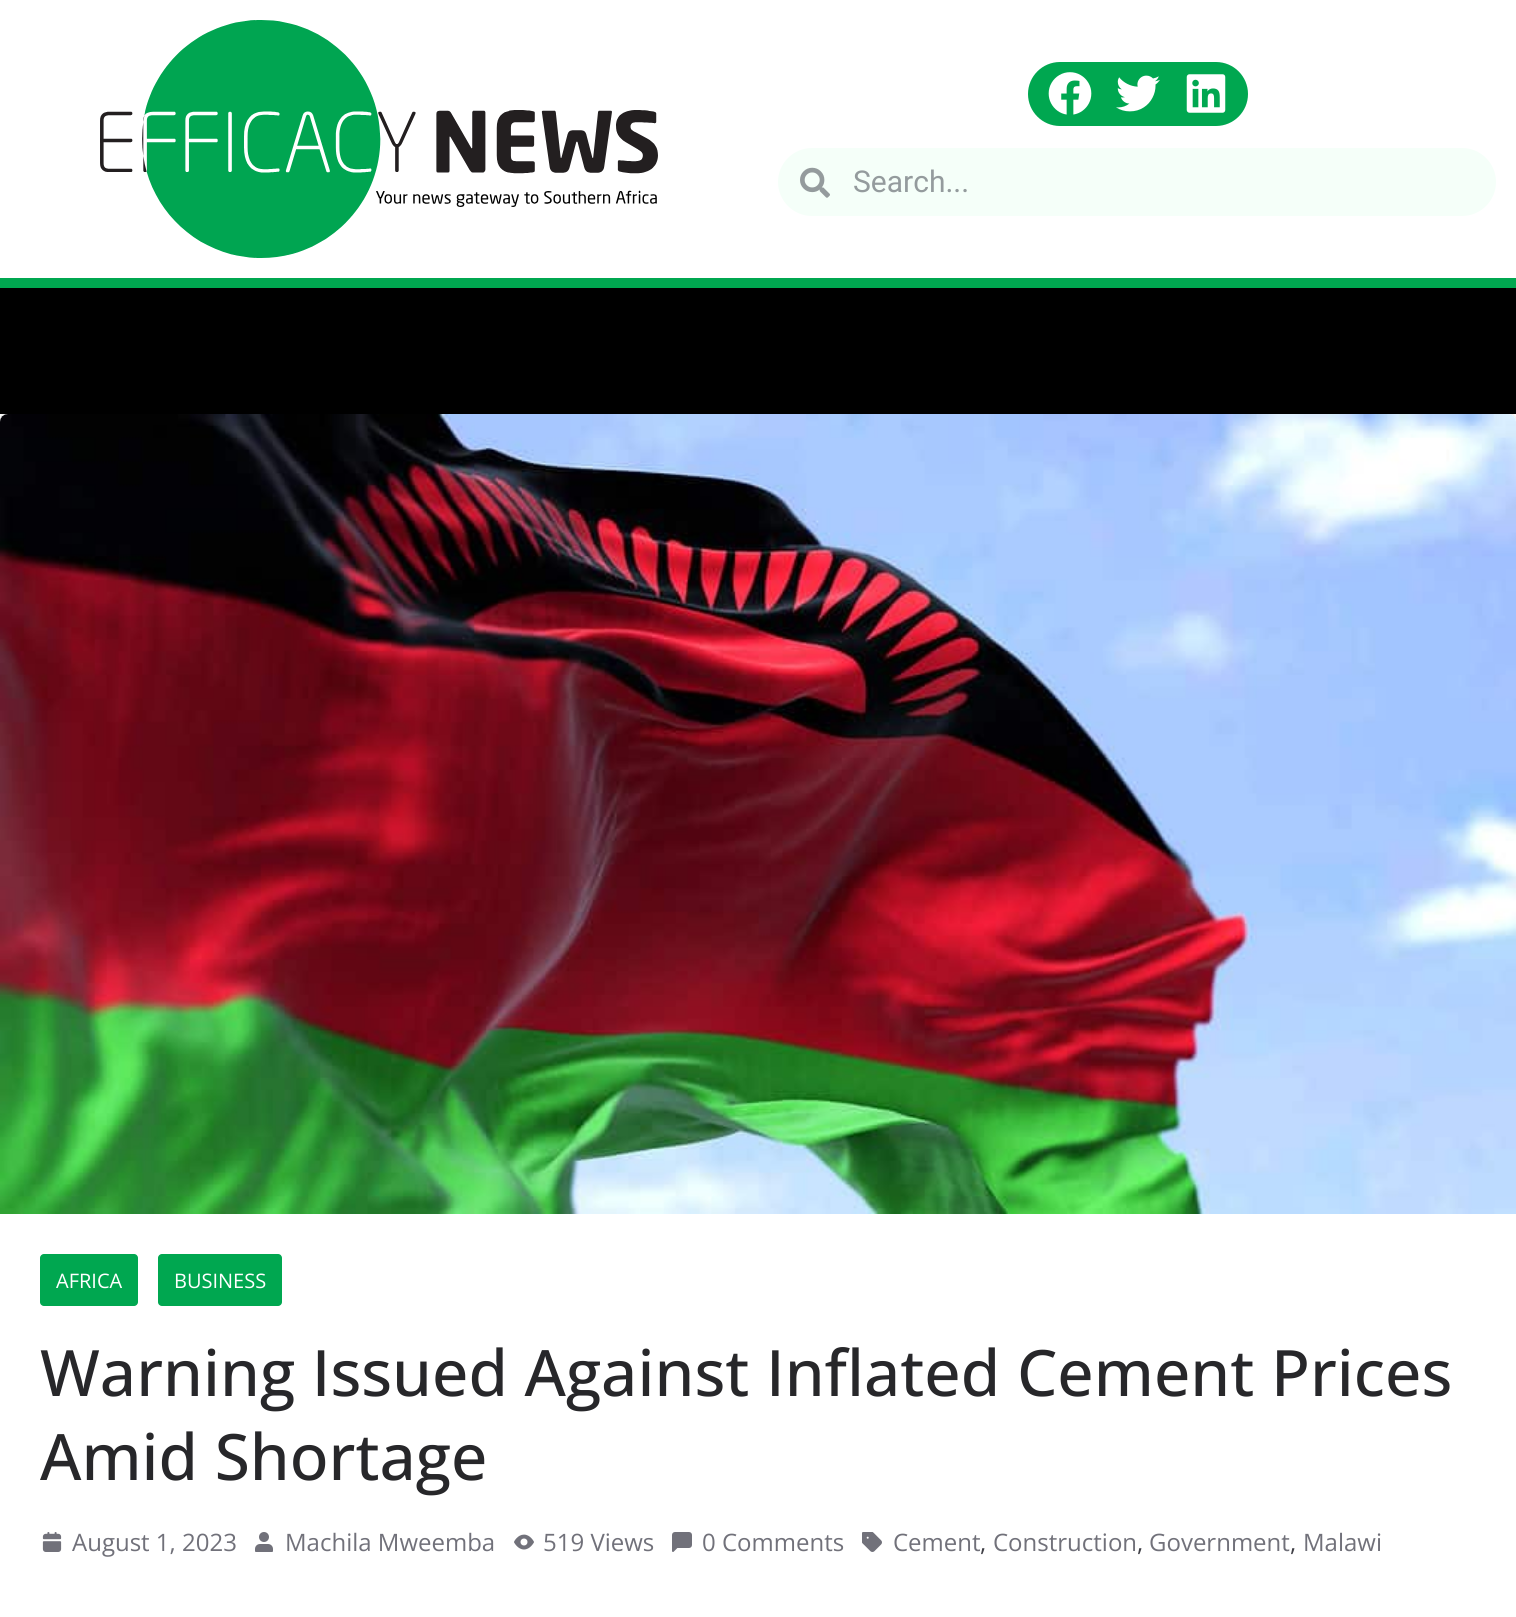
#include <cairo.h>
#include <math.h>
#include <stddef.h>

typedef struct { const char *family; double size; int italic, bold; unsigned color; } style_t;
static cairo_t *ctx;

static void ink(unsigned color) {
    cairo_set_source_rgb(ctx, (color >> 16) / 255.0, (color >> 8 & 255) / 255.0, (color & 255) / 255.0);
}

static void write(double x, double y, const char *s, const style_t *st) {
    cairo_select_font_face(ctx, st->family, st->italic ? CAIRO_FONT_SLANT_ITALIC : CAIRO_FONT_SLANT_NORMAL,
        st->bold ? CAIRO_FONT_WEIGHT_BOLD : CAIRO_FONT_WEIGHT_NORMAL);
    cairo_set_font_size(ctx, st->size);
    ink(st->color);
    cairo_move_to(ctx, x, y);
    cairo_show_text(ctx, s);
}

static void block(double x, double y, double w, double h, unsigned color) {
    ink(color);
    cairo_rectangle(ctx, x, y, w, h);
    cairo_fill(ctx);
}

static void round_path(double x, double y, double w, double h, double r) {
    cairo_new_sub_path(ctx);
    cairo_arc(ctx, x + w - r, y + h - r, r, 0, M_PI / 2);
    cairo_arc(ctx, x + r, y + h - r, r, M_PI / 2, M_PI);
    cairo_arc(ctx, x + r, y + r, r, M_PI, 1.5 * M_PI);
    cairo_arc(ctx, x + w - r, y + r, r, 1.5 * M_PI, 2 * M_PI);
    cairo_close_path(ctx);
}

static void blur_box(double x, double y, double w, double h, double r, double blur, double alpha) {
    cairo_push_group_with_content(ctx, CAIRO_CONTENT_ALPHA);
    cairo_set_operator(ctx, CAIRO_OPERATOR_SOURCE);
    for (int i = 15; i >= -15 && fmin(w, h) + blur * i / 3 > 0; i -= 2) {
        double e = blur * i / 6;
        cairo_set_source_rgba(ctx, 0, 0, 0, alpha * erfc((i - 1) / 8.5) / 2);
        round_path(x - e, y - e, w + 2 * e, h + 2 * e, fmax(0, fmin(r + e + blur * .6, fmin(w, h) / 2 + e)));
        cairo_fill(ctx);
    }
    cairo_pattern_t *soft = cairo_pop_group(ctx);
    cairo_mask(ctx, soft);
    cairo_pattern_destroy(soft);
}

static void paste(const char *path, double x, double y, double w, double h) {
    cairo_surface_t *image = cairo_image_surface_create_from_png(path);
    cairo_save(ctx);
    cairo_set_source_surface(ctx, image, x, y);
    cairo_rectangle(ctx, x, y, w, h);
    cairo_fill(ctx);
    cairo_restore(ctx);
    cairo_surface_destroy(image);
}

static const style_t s1 = {"Roboto", 30, 0, 0, 0x949b9d};
static const style_t s2 = {"Open Sans", 20, 0, 0, 0xffffff};
static const style_t s3 = {"Open Sans Medium", 64, 0, 0, 0x27272a};
static const style_t s4 = {"Open Sans", 24, 0, 0, 0x71717a};
static const style_t s5 = {"Open Sans", 24, 0, 0, 0x3f3f46};

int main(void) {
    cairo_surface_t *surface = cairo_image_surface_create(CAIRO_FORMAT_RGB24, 1516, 1617);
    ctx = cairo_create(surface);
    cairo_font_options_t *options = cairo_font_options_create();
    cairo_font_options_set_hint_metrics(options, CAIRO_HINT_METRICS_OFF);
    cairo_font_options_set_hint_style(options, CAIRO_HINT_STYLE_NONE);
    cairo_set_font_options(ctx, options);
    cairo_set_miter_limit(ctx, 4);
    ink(0xffffff);
    cairo_paint(ctx);
    paste("pic1.png", 100, 20, 558, 238);
    ink(0x00a750);
    round_path(1028, 62, 220, 64, 32);
    cairo_fill(ctx);
    paste("pic2.png", 1048, 72, 44, 43);
    paste("pic3.png", 1116, 75, 44, 37);
    paste("pic4.png", 1186, 74, 40, 39);
    ink(0xf5fff9);
    round_path(778, 148, 718, 68, 34);
    cairo_fill(ctx);
    paste("pic5.png", 800, 167, 30, 31);
    write(853, 192, "Search...", &s1);
    block(0, 288, 1516, 126, 0x000000);
    block(0, 278, 1516, 10, 0x00a750);
    cairo_save(ctx);
    cairo_set_fill_rule(ctx, CAIRO_FILL_RULE_EVEN_ODD);
    cairo_new_path(ctx);
    cairo_move_to(ctx, 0, 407);
    cairo_line_to(ctx, 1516, 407);
    cairo_line_to(ctx, 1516, 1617);
    cairo_line_to(ctx, 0, 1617);
    cairo_close_path(ctx);
    cairo_move_to(ctx, 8, 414);
    cairo_line_to(ctx, 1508, 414);
    cairo_curve_to(ctx, 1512.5, 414, 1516, 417.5, 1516, 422);
    cairo_line_to(ctx, 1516, 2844);
    cairo_curve_to(ctx, 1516, 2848.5, 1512.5, 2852, 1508, 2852);
    cairo_line_to(ctx, 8, 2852);
    cairo_curve_to(ctx, 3.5, 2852, 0, 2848.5, 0, 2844);
    cairo_line_to(ctx, 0, 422);
    cairo_curve_to(ctx, 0, 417.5, 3.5, 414, 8, 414);
    cairo_close_path(ctx);
    cairo_clip(ctx);
    ink(0x000000);
    blur_box(0, 414, 1516, 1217, 8, 2, 0.24);
    cairo_restore(ctx);
    paste("pic6.png", 0, 414, 1516, 800);
    round_path(40, 1254, 98, 52, 4);
    cairo_fill(ctx);
    write(56, 1288, "AFRICA", &s2);
    ink(0x00a750);
    round_path(158, 1254, 124, 52, 4);
    cairo_fill(ctx);
    write(174, 1288, "BUSINESS", &s2);
    write(40, 1396, "Warning Issued Against Inflated Cement Prices", &s3);
    write(40, 1480, "Amid Shortage", &s3);
    paste("pic7.png", 42, 1532, 20, 20);
    write(72, 1551, "August 1, 2023", &s4);
    paste("pic8.png", 255, 1532, 18, 20);
    write(285, 1551, "Machila Mweemba", &s4);
    paste("pic9.png", 514, 1534, 20, 16);
    write(543, 1551, "519 Views", &s4);
    paste("pic10.png", 672, 1532, 20, 20);
    write(702, 1551, "0 Comments", &s4);
    paste("pic11.png", 862, 1532, 20, 20);
    write(893, 1551, "Cement", &s4);
    write(980, 1551, ",", &s5);
    write(993, 1551, "Construction", &s4);
    write(1137, 1551, ",", &s5);
    write(1149, 1551, "Government", &s4);
    write(1290, 1551, ",", &s5);
    write(1303, 1551, "Malawi", &s4);
    cairo_surface_write_to_png(surface, "screenshot.png");
    cairo_font_options_destroy(options);
    cairo_destroy(ctx);
    cairo_surface_destroy(surface);
    return 0;
}
